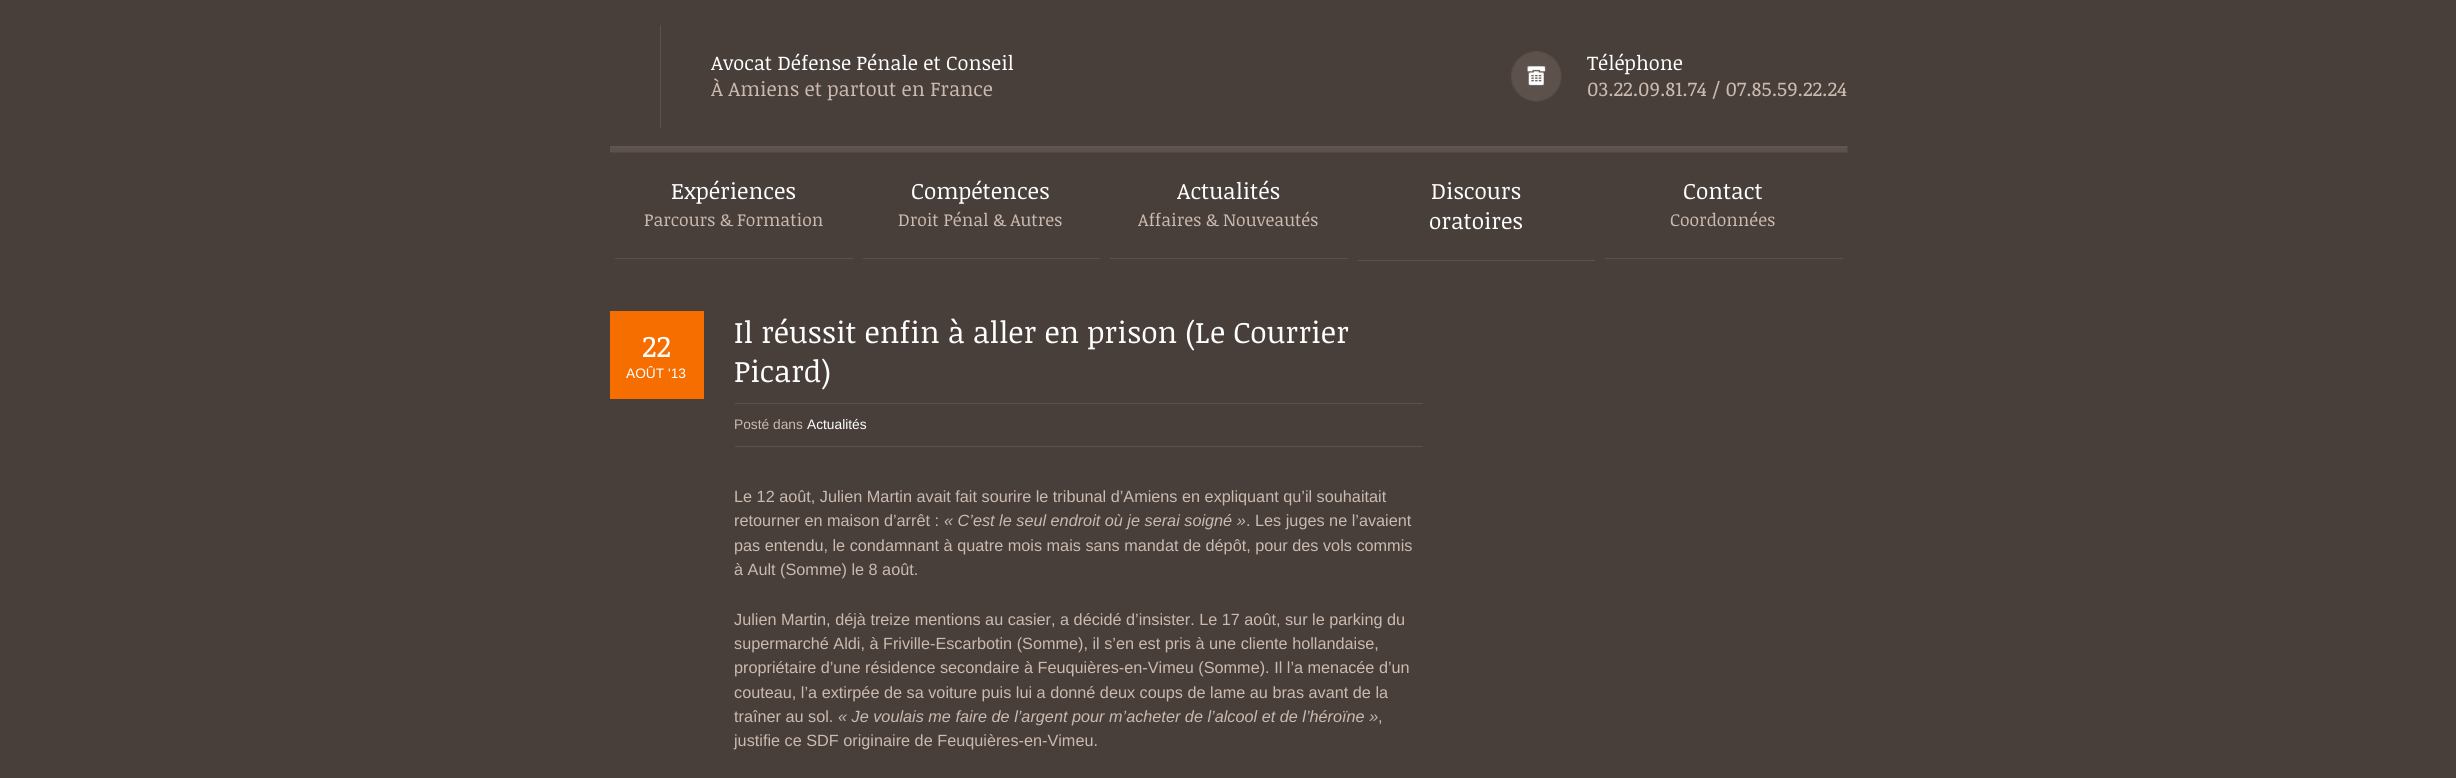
#include <cairo.h>
#include <math.h>
#include <stddef.h>

typedef struct { const char *family; double size; int italic, bold; unsigned color; } style_t;
static cairo_t *ctx;

static void ink(unsigned color) {
    cairo_set_source_rgb(ctx, (color >> 16) / 255.0, (color >> 8 & 255) / 255.0, (color & 255) / 255.0);
}

static void write(double x, double y, const char *s, const style_t *st) {
    cairo_select_font_face(ctx, st->family, st->italic ? CAIRO_FONT_SLANT_ITALIC : CAIRO_FONT_SLANT_NORMAL,
        st->bold ? CAIRO_FONT_WEIGHT_BOLD : CAIRO_FONT_WEIGHT_NORMAL);
    cairo_set_font_size(ctx, st->size);
    ink(st->color);
    cairo_move_to(ctx, x, y);
    cairo_show_text(ctx, s);
}

static void block(double x, double y, double w, double h, unsigned color) {
    ink(color);
    cairo_rectangle(ctx, x, y, w, h);
    cairo_fill(ctx);
}

static void paste(const char *path, double x, double y, double w, double h) {
    cairo_surface_t *image = cairo_image_surface_create_from_png(path);
    cairo_save(ctx);
    cairo_set_source_surface(ctx, image, x, y);
    cairo_rectangle(ctx, x, y, w, h);
    cairo_fill(ctx);
    cairo_restore(ctx);
    cairo_surface_destroy(image);
}

static const style_t s1 = {"Noticia Text", 20, 0, 0, 0xffffff};
static const style_t s2 = {"Noticia Text", 20, 0, 0, 0xcbbaaf};
static const style_t s3 = {"Noticia Text", 22.5, 0, 0, 0xffffff};
static const style_t s4 = {"Noticia Text", 17.5, 0, 0, 0xcbbaaf};
static const style_t s5 = {"Noticia Text", 30, 0, 0, 0xffffff};
static const style_t s6 = {"Liberation Sans", 13.75, 0, 0, 0xffffff};
static const style_t s7 = {"Liberation Sans", 13.75, 0, 0, 0xcbbaaf};
static const style_t s8 = {"Liberation Sans", 16.25, 0, 0, 0xcbbaaf};
static const style_t s9 = {"Liberation Sans", 16.25, 1, 0, 0xcbbaaf};

int main(void) {
    cairo_surface_t *surface = cairo_image_surface_create(CAIRO_FORMAT_RGB24, 2456, 778);
    ctx = cairo_create(surface);
    cairo_font_options_t *options = cairo_font_options_create();
    cairo_font_options_set_hint_metrics(options, CAIRO_HINT_METRICS_OFF);
    cairo_font_options_set_hint_style(options, CAIRO_HINT_STYLE_NONE);
    cairo_set_font_options(ctx, options);
    cairo_set_miter_limit(ctx, 4);
    ink(0x483f3b);
    cairo_paint(ctx);
    paste("pic1.png", 610, 146, 1238, 7);
    block(660, 25, 1, 103, 0x5d514b);
    write(711, 70, "Avocat Défense Pénale et Conseil", &s1);
    write(711, 96, "À Amiens et partout en France", &s2);
    paste("pic2.png", 1511, 51, 51, 51);
    write(1587, 70, "Téléphone", &s1);
    write(1587, 96, "03.22.09.81.74 / 07.85.59.22.24", &s2);
    block(615, 258, 238, 1, 0x5d514b);
    write(671, 199, "Expériences", &s3);
    write(644, 226, "Parcours & Formation", &s4);
    block(863, 258, 237, 1, 0x5d514b);
    write(911, 199, "Compétences", &s3);
    write(898, 226, "Droit Pénal & Autres", &s4);
    block(1110, 258, 238, 1, 0x5d514b);
    write(1177, 199, "Actualités", &s3);
    write(1138, 226, "Affaires & Nouveautés", &s4);
    block(1358, 260, 237, 1, 0x5d514b);
    write(1431, 199, "Discours", &s3);
    write(1429, 229, "oratoires", &s3);
    block(1605, 258, 238, 1, 0x5d514b);
    write(1683, 199, "Contact", &s3);
    write(1670, 226, "Coordonnées", &s4);
    block(610, 311, 94, 88, 0xf66e00);
    write(642, 357, "22", &s5);
    write(626, 378, "AOÛT '13", &s6);
    write(734, 343, "Il réussit enfin à aller en prison (Le Courrier", &s5);
    write(734, 382, "Picard)", &s5);
    block(735, 403, 688, 1, 0x5d514b);
    block(735, 446, 688, 1, 0x5d514b);
    write(734, 429, "Posté dans", &s7);
    write(807, 429, "Actualités", &s6);
    write(734, 502, "Le 12 août, Julien Martin avait fait sourire le tribunal d’Amiens en expliquant qu’il souhaitait", &s8);
    write(734, 526, "retourner en maison d’arrêt :", &s8);
    write(944, 526, "« C’est le seul endroit où je serai soigné »", &s9);
    write(1246, 526, ". Les juges ne l’avaient", &s8);
    write(734, 551, "pas entendu, le condamnant à quatre mois mais sans mandat de dépôt, pour des vols commis", &s8);
    write(734, 575, "à Ault (Somme) le 8 août.", &s8);
    write(734, 625, "Julien Martin, déjà treize mentions au casier, a décidé d’insister. Le 17 août, sur le parking du", &s8);
    write(734, 649, "supermarché Aldi, à Friville-Escarbotin (Somme), il s’en est pris à une cliente hollandaise,", &s8);
    write(734, 673, "propriétaire d’une résidence secondaire à Feuquières-en-Vimeu (Somme). Il l’a menacée d’un", &s8);
    write(734, 698, "couteau, l’a extirpée de sa voiture puis lui a donné deux coups de lame au bras avant de la", &s8);
    write(734, 722, "traîner au sol.", &s8);
    write(838, 722, "« Je voulais me faire de l’argent pour m’acheter de l’alcool et de l’héroïne »", &s9);
    write(1378, 722, ",", &s8);
    write(734, 746, "justifie ce SDF originaire de Feuquières-en-Vimeu.", &s8);
    cairo_surface_write_to_png(surface, "screenshot.png");
    cairo_font_options_destroy(options);
    cairo_destroy(ctx);
    cairo_surface_destroy(surface);
    return 0;
}
